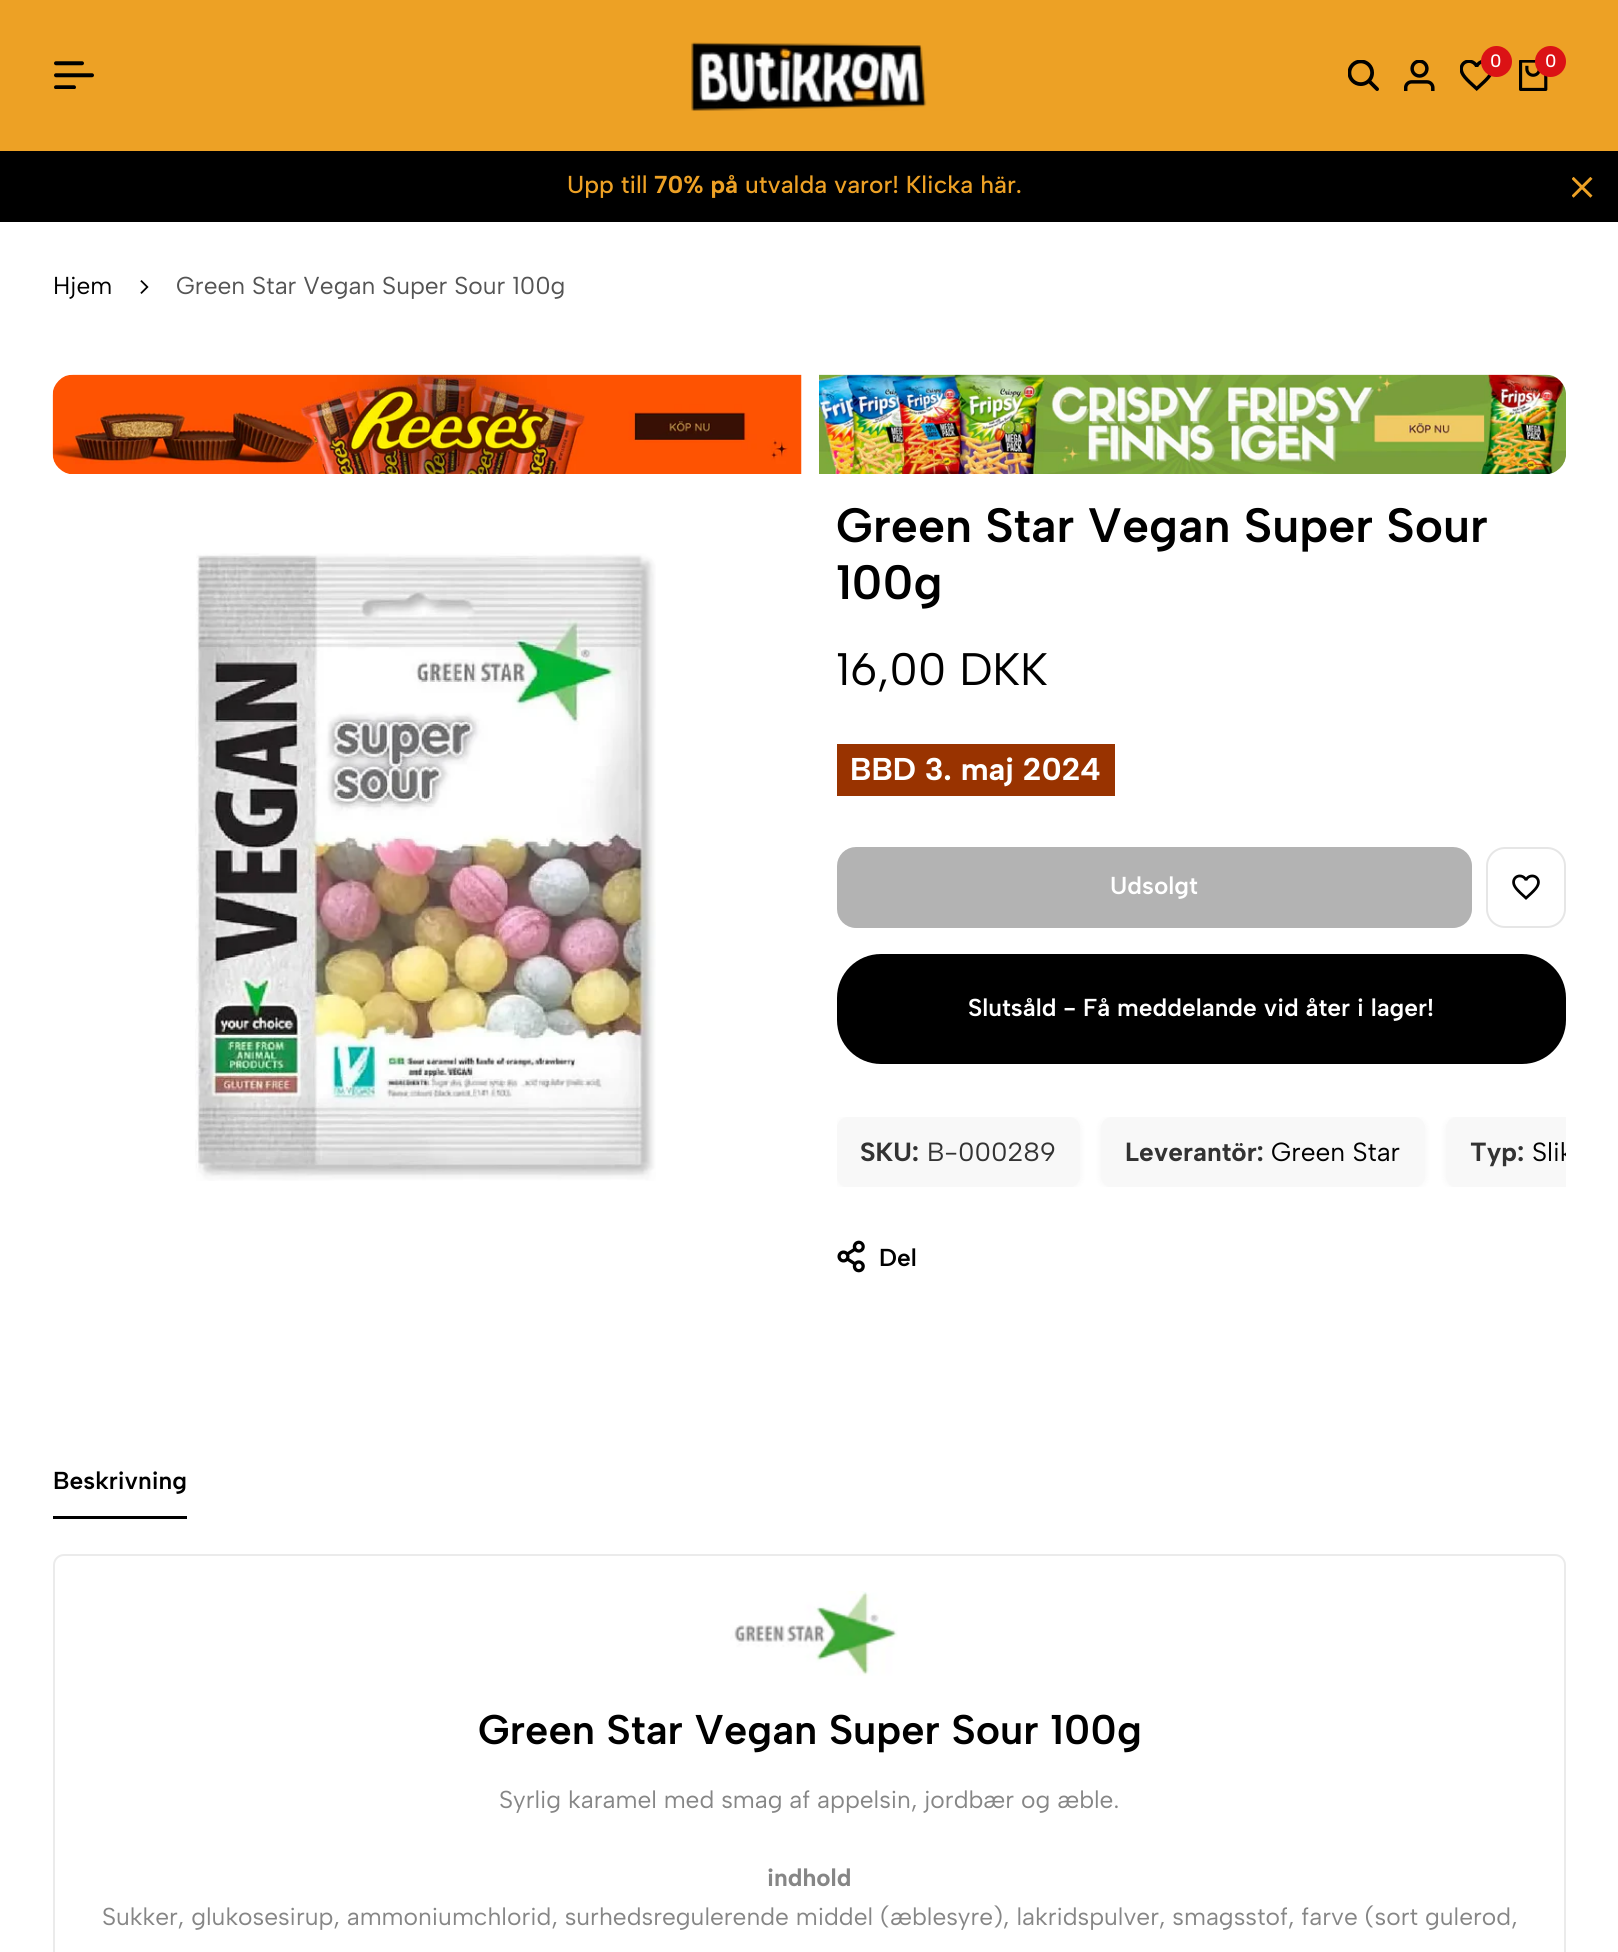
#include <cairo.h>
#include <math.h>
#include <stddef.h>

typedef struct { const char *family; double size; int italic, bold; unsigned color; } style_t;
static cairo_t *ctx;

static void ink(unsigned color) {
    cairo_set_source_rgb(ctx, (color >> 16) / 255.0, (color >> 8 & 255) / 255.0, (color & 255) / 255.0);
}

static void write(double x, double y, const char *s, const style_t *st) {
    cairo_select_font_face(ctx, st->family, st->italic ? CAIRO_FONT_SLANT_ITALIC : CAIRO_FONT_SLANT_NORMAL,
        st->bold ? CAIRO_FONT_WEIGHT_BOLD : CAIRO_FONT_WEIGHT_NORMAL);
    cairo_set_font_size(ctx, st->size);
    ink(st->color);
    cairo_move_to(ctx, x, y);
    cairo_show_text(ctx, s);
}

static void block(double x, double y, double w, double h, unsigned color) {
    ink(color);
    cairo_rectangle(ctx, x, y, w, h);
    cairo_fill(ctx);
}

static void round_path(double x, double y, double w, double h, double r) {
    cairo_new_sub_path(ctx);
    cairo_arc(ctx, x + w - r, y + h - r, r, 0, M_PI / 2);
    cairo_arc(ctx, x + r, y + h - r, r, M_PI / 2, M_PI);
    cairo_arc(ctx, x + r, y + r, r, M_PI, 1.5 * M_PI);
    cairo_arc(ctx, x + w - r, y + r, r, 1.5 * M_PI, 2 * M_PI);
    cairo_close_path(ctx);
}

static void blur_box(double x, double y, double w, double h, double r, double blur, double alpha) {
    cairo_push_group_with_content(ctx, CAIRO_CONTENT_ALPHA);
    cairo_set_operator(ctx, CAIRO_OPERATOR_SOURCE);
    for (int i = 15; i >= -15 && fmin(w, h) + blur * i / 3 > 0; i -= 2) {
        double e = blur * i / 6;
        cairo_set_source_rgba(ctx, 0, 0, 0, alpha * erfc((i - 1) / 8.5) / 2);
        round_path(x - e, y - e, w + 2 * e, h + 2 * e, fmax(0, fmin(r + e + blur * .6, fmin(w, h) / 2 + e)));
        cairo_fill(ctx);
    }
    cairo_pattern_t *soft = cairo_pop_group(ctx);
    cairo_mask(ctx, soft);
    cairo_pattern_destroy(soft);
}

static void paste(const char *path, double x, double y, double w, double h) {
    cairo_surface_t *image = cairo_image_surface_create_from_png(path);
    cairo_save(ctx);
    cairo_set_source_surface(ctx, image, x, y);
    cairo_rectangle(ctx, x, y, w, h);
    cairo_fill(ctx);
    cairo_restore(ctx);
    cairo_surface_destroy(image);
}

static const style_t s1 = {"Albert Sans Medium", 18, 0, 0, 0xffffff};
static const style_t s2 = {"Albert Sans Medium", 24.5, 0, 0, 0xeda125};
static const style_t s3 = {"Albert Sans", 24.5, 0, 1, 0xeda125};
static const style_t s4 = {"Albert Sans", 24.5, 0, 0, 0x000000};
static const style_t s5 = {"Albert Sans", 24.5, 0, 0, 0x545454};
static const style_t s6 = {"Albert Sans SemiBold", 48.25, 0, 0, 0x000000};
static const style_t s7 = {"Albert Sans", 45.5, 0, 0, 0x000000};
static const style_t s8 = {"Albert Sans", 31.5, 0, 1, 0xffffff};
static const style_t s9 = {"Albert Sans SemiBold", 24.5, 0, 0, 0xffffff};
static const style_t s10 = {"Albert Sans", 26.25, 0, 1, 0x333333};
static const style_t s11 = {"Albert Sans", 26.25, 0, 0, 0x333333};
static const style_t s12 = {"Albert Sans", 26.25, 0, 0, 0x000000};
static const style_t s13 = {"Albert Sans SemiBold", 24.5, 0, 0, 0x000000};
static const style_t s14 = {"Albert Sans SemiBold", 41.5, 0, 0, 0x000000};
static const style_t s15 = {"Albert Sans", 24.5, 0, 0, 0x868686};
static const style_t s16 = {"Albert Sans", 24.5, 0, 1, 0x868686};

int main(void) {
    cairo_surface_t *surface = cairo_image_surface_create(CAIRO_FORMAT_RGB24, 1618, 1952);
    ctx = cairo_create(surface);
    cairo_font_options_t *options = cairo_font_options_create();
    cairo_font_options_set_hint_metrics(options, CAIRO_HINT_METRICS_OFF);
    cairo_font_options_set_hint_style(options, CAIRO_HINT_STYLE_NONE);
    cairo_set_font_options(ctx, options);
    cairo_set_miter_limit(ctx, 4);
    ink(0xffffff);
    cairo_paint(ctx);
    block(0, 0, 1618, 151, 0xeda125);
    paste("pic1.png", 54, 61, 40, 28);
    paste("pic2.png", 691, 42, 236, 69);
    paste("pic3.png", 1348, 60, 31, 31);
    paste("pic4.png", 1404, 60, 31, 31);
    paste("pic5.png", 1460, 60, 32, 31);
    ink(0xdb1215);
    cairo_arc(ctx, 1496.5, 61.5, 15.5, 0, 2 * M_PI);
    cairo_fill(ctx);
    write(1490, 67, "0", &s1);
    paste("pic6.png", 1519, 60, 29, 31);
    ink(0xdb1215);
    cairo_arc(ctx, 1550.5, 61.5, 15.5, 0, 2 * M_PI);
    cairo_fill(ctx);
    write(1545, 67, "0", &s1);
    block(0, 151, 1618, 71, 0x000000);
    write(567, 193, "Upp till", &s2);
    write(654, 193, "70% på", &s3);
    write(745, 193, "utvalda varor! Klicka här.", &s2);
    paste("pic7.png", 1572, 177, 21, 21);
    write(53, 294, "Hjem", &s4);
    paste("pic8.png", 140, 280, 9, 14);
    write(176, 294, "Green Star Vegan Super Sour 100g", &s5);
    paste("pic9.png", 52, 374, 750, 100);
    paste("pic10.png", 819, 374, 747, 100);
    paste("pic11.png", 195, 553, 461, 628);
    write(836, 542, "Green Star Vegan Super Sour", &s6);
    write(836, 599, "100g", &s6);
    write(836, 685, "16,00 DKK", &s7);
    block(837, 744, 278, 52, 0x993300);
    write(850, 780, "BBD 3. maj 2024", &s8);
    ink(0xb3b3b3);
    round_path(841.5, 851.5, 626, 72, 14.5);
    cairo_fill_preserve(ctx);
    cairo_set_line_width(ctx, 9);
    cairo_stroke(ctx);
    write(1110, 894, "Udsolgt", &s9);
    round_path(1487, 848, 78, 79, 18);
    ink(0xe6e6e6);
    cairo_set_line_width(ctx, 2);
    cairo_stroke(ctx);
    paste("pic12.png", 1512, 874, 28, 26);
    ink(0x000000);
    round_path(841.5, 958.5, 720, 101, 39.5);
    cairo_fill_preserve(ctx);
    cairo_set_line_width(ctx, 9);
    cairo_stroke(ctx);
    write(968, 1016, "Slutsåld - Få meddelande vid åter i lager!", &s9);
    cairo_save(ctx);
    cairo_rectangle(ctx, 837, 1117, 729, 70);
    cairo_clip(ctx);
    ink(0x000000);
    blur_box(837, 1118, 243, 70, 11, 3.5, 0.05);
    cairo_restore(ctx);
    ink(0xf8f8f8);
    round_path(837, 1117, 243, 70, 11);
    cairo_fill(ctx);
    write(860, 1161, "SKU:", &s10);
    write(927, 1161, "B-000289", &s11);
    cairo_save(ctx);
    cairo_rectangle(ctx, 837, 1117, 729, 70);
    cairo_clip(ctx);
    ink(0x000000);
    blur_box(1101, 1118, 324, 70, 11, 3.5, 0.05);
    cairo_restore(ctx);
    ink(0xf8f8f8);
    round_path(1101, 1117, 324, 70, 11);
    cairo_fill(ctx);
    write(1125, 1161, "Leverantör:", &s10);
    write(1271, 1161, "Green Star", &s12);
    cairo_save(ctx);
    cairo_rectangle(ctx, 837, 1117, 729, 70);
    cairo_clip(ctx);
    ink(0x000000);
    blur_box(1446, 1118, 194, 70, 11, 3.5, 0.05);
    cairo_restore(ctx);
    ink(0xf8f8f8);
    cairo_new_path(ctx);
    cairo_move_to(ctx, 1457, 1117);
    cairo_line_to(ctx, 1566, 1117);
    cairo_line_to(ctx, 1566, 1187);
    cairo_line_to(ctx, 1457, 1187);
    cairo_curve_to(ctx, 1451, 1187, 1446, 1182, 1446, 1176);
    cairo_line_to(ctx, 1446, 1128);
    cairo_curve_to(ctx, 1446, 1122, 1451, 1117, 1457, 1117);
    cairo_close_path(ctx);
    cairo_fill(ctx);
    write(1470, 1161, "Typ:", &s10);
    cairo_save(ctx);
    cairo_rectangle(ctx, 837, 1117, 729, 70);
    cairo_clip(ctx);
    write(1532, 1161, "Slik", &s12);
    cairo_restore(ctx);
    paste("pic13.png", 837, 1240, 28, 33);
    write(879, 1266, "Del", &s13);
    write(53, 1489, "Beskrivning", &s13);
    block(53, 1516, 134, 3, 0x000000);
    round_path(54, 1555, 1511, 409, 10);
    ink(0xebebeb);
    cairo_set_line_width(ctx, 2);
    cairo_stroke(ctx);
    paste("pic14.png", 730, 1591, 168, 85);
    write(478, 1744, "Green Star Vegan Super Sour 100g", &s14);
    write(499, 1808, "Syrlig karamel med smag af appelsin, jordbær og æble.", &s15);
    write(767, 1886, "indhold", &s16);
    write(102, 1925, "Sukker, glukosesirup, ammoniumchlorid, surhedsregulerende middel (æblesyre), lakridspulver, smagsstof, farve (sort gulerod,", &s15);
    cairo_surface_write_to_png(surface, "screenshot.png");
    cairo_font_options_destroy(options);
    cairo_destroy(ctx);
    cairo_surface_destroy(surface);
    return 0;
}
